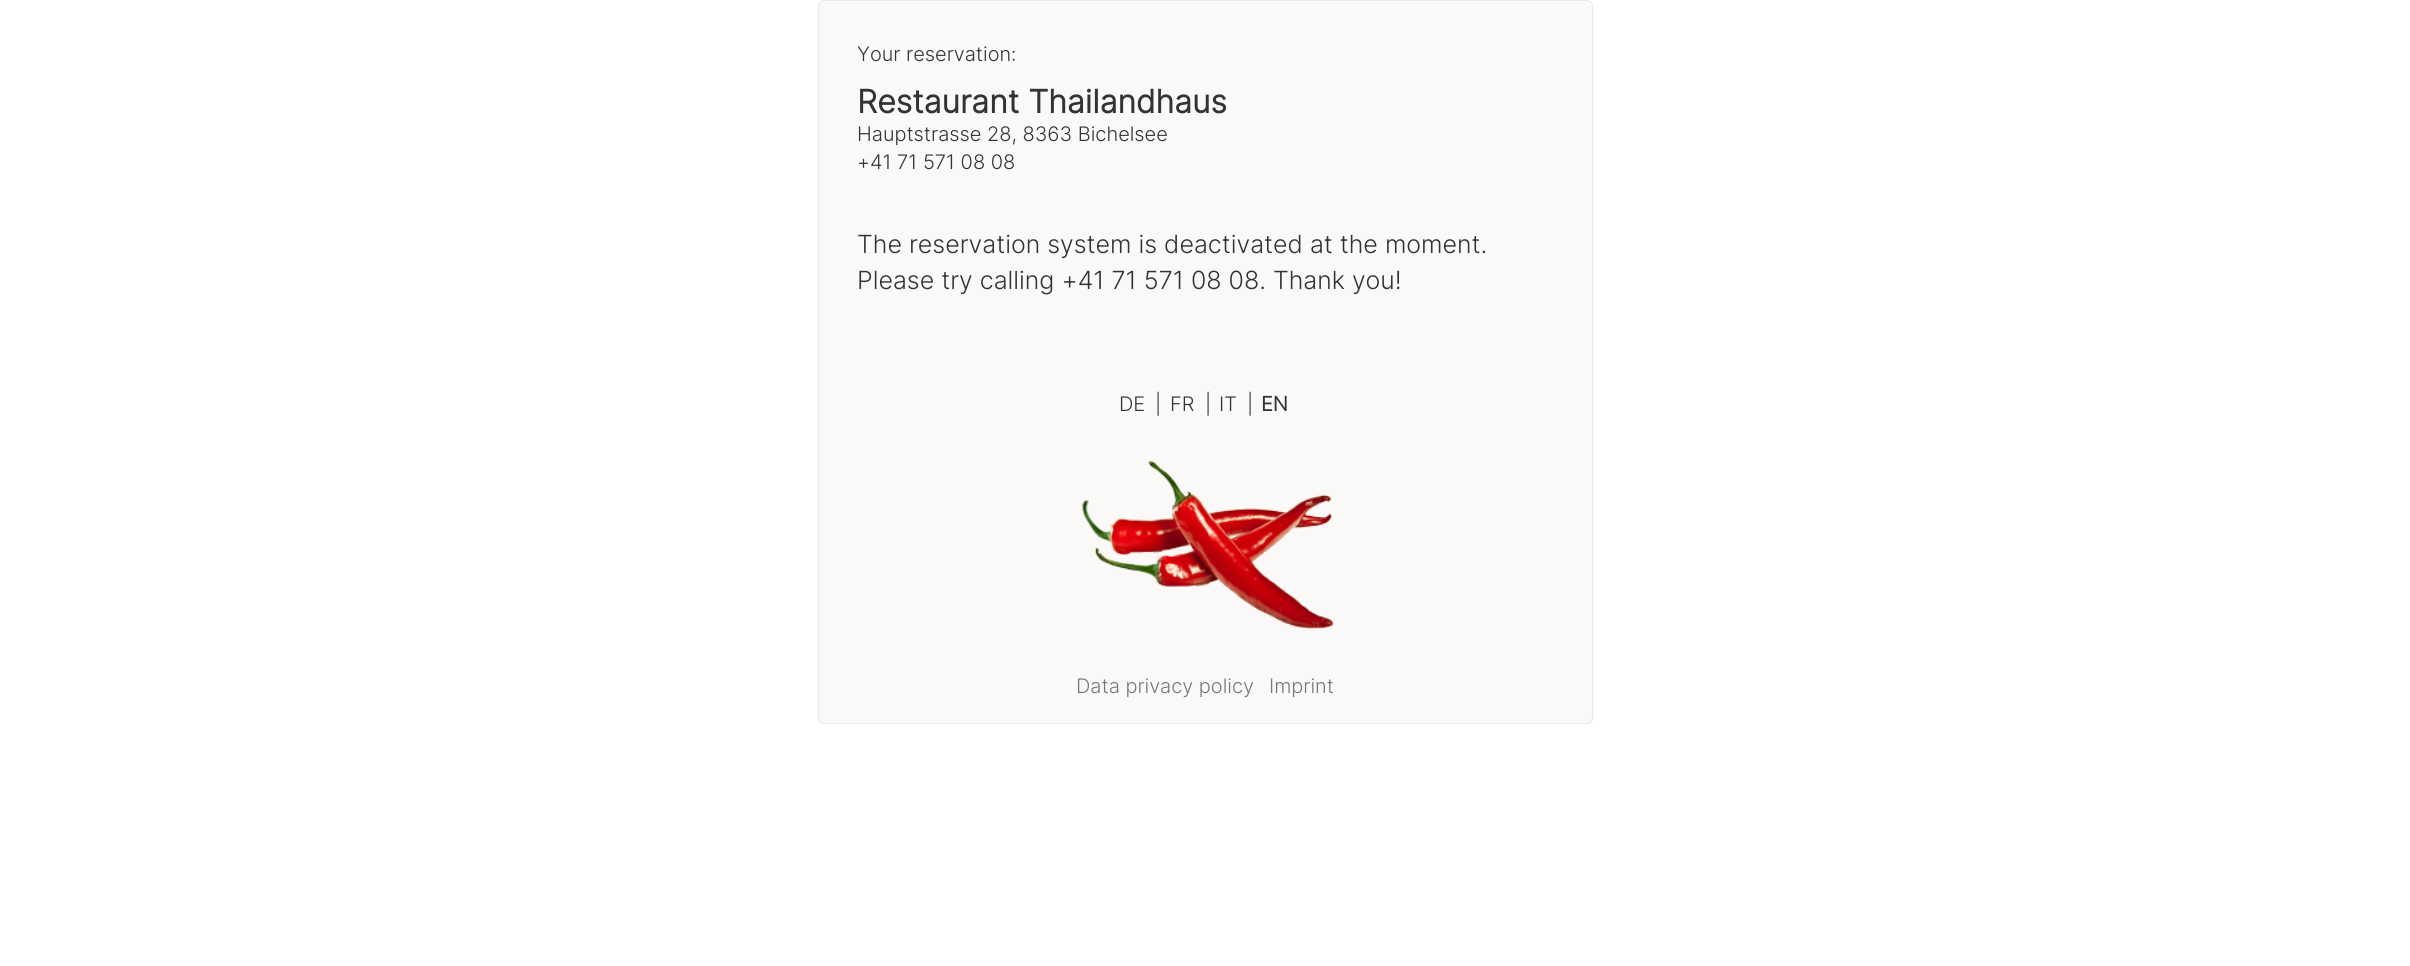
#include <cairo.h>
#include <math.h>
#include <stddef.h>

typedef struct { const char *family; double size; int italic, bold; unsigned color; } style_t;
static cairo_t *ctx;

static void ink(unsigned color) {
    cairo_set_source_rgb(ctx, (color >> 16) / 255.0, (color >> 8 & 255) / 255.0, (color & 255) / 255.0);
}

static void write(double x, double y, const char *s, const style_t *st) {
    cairo_select_font_face(ctx, st->family, st->italic ? CAIRO_FONT_SLANT_ITALIC : CAIRO_FONT_SLANT_NORMAL,
        st->bold ? CAIRO_FONT_WEIGHT_BOLD : CAIRO_FONT_WEIGHT_NORMAL);
    cairo_set_font_size(ctx, st->size);
    ink(st->color);
    cairo_move_to(ctx, x, y);
    cairo_show_text(ctx, s);
}

static void round_path(double x, double y, double w, double h, double r) {
    cairo_new_sub_path(ctx);
    cairo_arc(ctx, x + w - r, y + h - r, r, 0, M_PI / 2);
    cairo_arc(ctx, x + r, y + h - r, r, M_PI / 2, M_PI);
    cairo_arc(ctx, x + r, y + r, r, M_PI, 1.5 * M_PI);
    cairo_arc(ctx, x + w - r, y + r, r, 1.5 * M_PI, 2 * M_PI);
    cairo_close_path(ctx);
}

static void paste(const char *path, double x, double y, double w, double h) {
    cairo_surface_t *image = cairo_image_surface_create_from_png(path);
    cairo_save(ctx);
    cairo_set_source_surface(ctx, image, x, y);
    cairo_rectangle(ctx, x, y, w, h);
    cairo_fill(ctx);
    cairo_restore(ctx);
    cairo_surface_destroy(image);
}

static const style_t s1 = {"Inter Light", 20, 0, 0, 0x333333};
static const style_t s2 = {"Inter", 32, 0, 1, 0x333333};
static const style_t s3 = {"Inter Light", 25, 0, 0, 0x333333};
static const style_t s4 = {"Inter", 20, 0, 1, 0x333333};
static const style_t s5 = {"Inter Light", 20, 0, 0, 0x70787e};

int main(void) {
    cairo_surface_t *surface = cairo_image_surface_create(CAIRO_FORMAT_RGB24, 2410, 966);
    ctx = cairo_create(surface);
    cairo_font_options_t *options = cairo_font_options_create();
    cairo_font_options_set_hint_metrics(options, CAIRO_HINT_METRICS_OFF);
    cairo_font_options_set_hint_style(options, CAIRO_HINT_STYLE_NONE);
    cairo_set_font_options(ctx, options);
    cairo_set_miter_limit(ctx, 4);
    ink(0xffffff);
    cairo_paint(ctx);
    ink(0xfbf9f7);
    round_path(818.5, 0.5, 774, 723, 5.5);
    cairo_fill_preserve(ctx);
    ink(0xe9e9e9);
    cairo_set_line_width(ctx, 1);
    cairo_stroke(ctx);
    write(857, 61, "Your reservation:", &s1);
    write(857, 113, "Restaurant Thailandhaus", &s2);
    write(857, 141, "Hauptstrasse 28, 8363 Bichelsee", &s1);
    write(857, 169, "+41 71 571 08 08", &s1);
    write(857, 253, "The reservation system is deactivated at the moment.", &s3);
    write(857, 289, "Please try calling +41 71 571 08 08. Thank you!", &s3);
    write(1119, 411, "DE", &s1);
    write(1155, 411, "|", &s1);
    write(1170, 411, "FR", &s1);
    write(1205, 411, "|", &s1);
    write(1219, 411, "IT", &s1);
    write(1247, 411, "|", &s1);
    write(1261, 411, "EN", &s4);
    paste("pic1.png", 1082, 461, 253, 168);
    write(1076, 693, "Data privacy policy", &s5);
    write(1269, 693, "Imprint", &s5);
    cairo_surface_write_to_png(surface, "screenshot.png");
    cairo_font_options_destroy(options);
    cairo_destroy(ctx);
    cairo_surface_destroy(surface);
    return 0;
}
